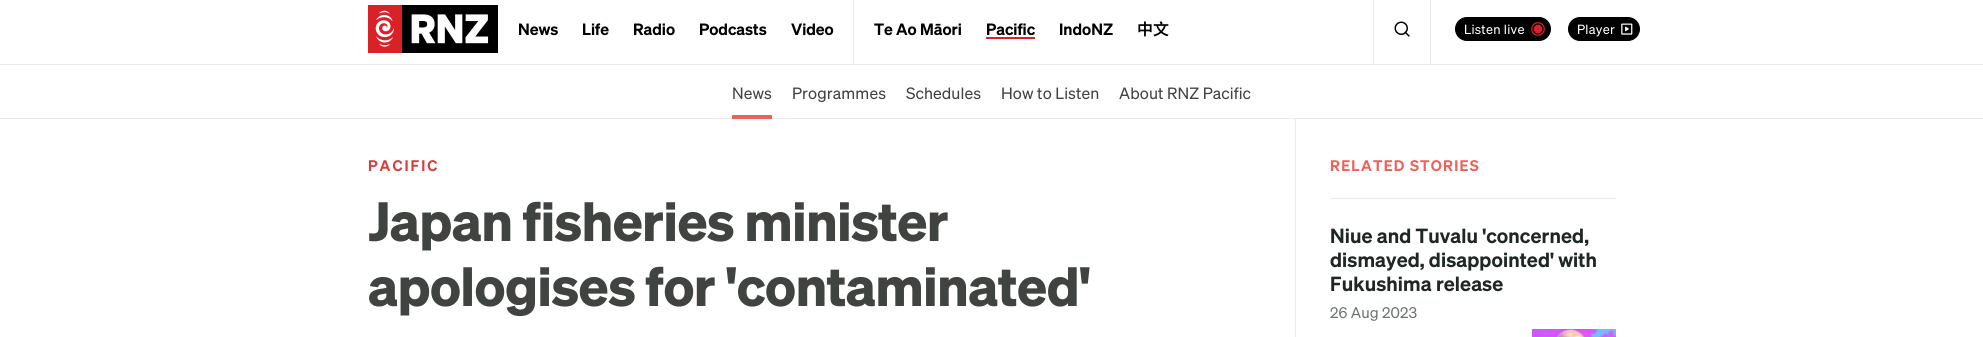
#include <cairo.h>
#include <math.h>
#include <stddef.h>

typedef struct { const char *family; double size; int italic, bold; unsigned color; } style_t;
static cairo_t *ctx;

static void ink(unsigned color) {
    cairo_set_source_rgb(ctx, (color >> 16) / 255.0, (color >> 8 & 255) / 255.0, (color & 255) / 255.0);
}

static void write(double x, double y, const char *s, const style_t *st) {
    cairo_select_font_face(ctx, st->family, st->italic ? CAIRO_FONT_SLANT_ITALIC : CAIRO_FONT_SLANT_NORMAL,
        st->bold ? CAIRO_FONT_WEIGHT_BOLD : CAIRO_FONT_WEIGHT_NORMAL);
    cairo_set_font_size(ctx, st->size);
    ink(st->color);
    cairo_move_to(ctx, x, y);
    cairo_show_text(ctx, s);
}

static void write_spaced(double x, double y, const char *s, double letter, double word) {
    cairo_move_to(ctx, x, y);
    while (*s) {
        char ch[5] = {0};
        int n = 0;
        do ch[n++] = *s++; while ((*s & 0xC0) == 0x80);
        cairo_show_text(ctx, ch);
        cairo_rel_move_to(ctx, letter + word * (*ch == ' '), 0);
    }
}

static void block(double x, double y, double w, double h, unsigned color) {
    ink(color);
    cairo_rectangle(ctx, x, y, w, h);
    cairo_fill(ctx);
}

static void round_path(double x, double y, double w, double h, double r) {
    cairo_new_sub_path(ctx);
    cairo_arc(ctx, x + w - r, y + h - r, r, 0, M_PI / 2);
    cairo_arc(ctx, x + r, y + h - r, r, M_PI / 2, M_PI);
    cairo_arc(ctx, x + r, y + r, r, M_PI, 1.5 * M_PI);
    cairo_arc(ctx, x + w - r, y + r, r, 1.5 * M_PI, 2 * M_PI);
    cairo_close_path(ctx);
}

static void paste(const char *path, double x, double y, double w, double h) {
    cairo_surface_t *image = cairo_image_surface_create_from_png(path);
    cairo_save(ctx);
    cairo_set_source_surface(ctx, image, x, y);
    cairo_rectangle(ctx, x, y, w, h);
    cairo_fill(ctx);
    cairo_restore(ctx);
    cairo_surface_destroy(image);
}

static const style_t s1 = {"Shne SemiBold", 16, 0, 0, 0x000000};
static const style_t s2 = {"Noto Sans SC SemiBold", 16, 0, 0, 0x000000};

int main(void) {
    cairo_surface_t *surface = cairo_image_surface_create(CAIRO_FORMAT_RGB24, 1983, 337);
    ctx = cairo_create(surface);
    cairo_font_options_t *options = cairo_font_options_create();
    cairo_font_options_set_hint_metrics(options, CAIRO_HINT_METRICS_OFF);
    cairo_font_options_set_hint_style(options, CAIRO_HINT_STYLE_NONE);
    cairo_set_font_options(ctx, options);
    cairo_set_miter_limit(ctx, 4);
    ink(0xffffff);
    cairo_paint(ctx);
    block(0, 64, 1983, 1, 0xe8e8e8);
    paste("pic1.png", 368, 5, 130, 48);
    write(518, 35, "News", &s1);
    write(582, 35, "Life", &s1);
    write(633, 35, "Radio", &s1);
    write(699, 35, "Podcasts", &s1);
    write(791, 35, "Video", &s1);
    block(853, 0, 1, 64, 0xe8e8e8);
    write(874, 35, "Te Ao Māori", &s1);
    write(986, 35, "Pacific", &s1);
    block(986, 37, 49, 2, 0xda2128);
    write(1059, 35, "IndoNZ", &s1);
    write(1137, 35, "中文", &s2);
    block(1373, 0, 1, 64, 0xe8e8e8);
    paste("pic2.png", 1394, 21, 16, 16);
    block(1430, 0, 1, 64, 0xe8e8e8);
    ink(0x000000);
    round_path(1455.5, 17.5, 95, 23, 11.5);
    cairo_fill_preserve(ctx);
    cairo_set_line_width(ctx, 1);
    cairo_stroke(ctx);
    cairo_select_font_face(ctx, "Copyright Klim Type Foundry", CAIRO_FONT_SLANT_NORMAL, CAIRO_FONT_WEIGHT_NORMAL);
    cairo_set_font_size(ctx, 13);
    ink(0xffffff);
    write_spaced(1464, 34, "Listen live", 0.25, 0);
    paste("pic3.png", 1531, 22, 14, 14);
    ink(0x000000);
    round_path(1568.5, 17.5, 71, 23, 11.5);
    cairo_fill_preserve(ctx);
    cairo_stroke(ctx);
    ink(0xffffff);
    write_spaced(1577, 34, "Player", 0.25, 0);
    paste("pic4.png", 1621, 23, 12, 12);
    cairo_set_font_size(ctx, 16);
    ink(0x404441);
    write_spaced(732, 99, "News", 0.1, 0);
    block(0, 118, 1983, 1, 0xebeae6);
    block(732, 115, 40, 4, 0xed615a);
    ink(0x404441);
    write_spaced(792, 99, "Programmes", 0.1, 0);
    write_spaced(906, 99, "Schedules", 0.1, 0);
    write_spaced(1001, 99, "How to Listen", 0.1, 0);
    write_spaced(1119, 99, "About RNZ Pacific", 0.1, 0);
    cairo_select_font_face(ctx, "Shne SemiBold", CAIRO_FONT_SLANT_NORMAL, CAIRO_FONT_WEIGHT_NORMAL);
    cairo_set_font_size(ctx, 15);
    ink(0xd24141);
    write_spaced(368, 171, "PACIFIC", 2, 0);
    cairo_select_font_face(ctx, "Copyright Klim Type Foundry", CAIRO_FONT_SLANT_NORMAL, CAIRO_FONT_WEIGHT_BOLD);
    cairo_set_font_size(ctx, 54);
    ink(0x404441);
    write_spaced(368, 241, "Japan fisheries minister", -0.4, 0);
    write_spaced(368, 306, "apologises for 'contaminated'", -0.4, 0);
    block(1295, 119, 1, 218, 0xebeae6);
    cairo_select_font_face(ctx, "Shne SemiBold", CAIRO_FONT_SLANT_NORMAL, CAIRO_FONT_WEIGHT_NORMAL);
    cairo_set_font_size(ctx, 15);
    ink(0xed615a);
    write_spaced(1330, 171, "RELATED STORIES", 1.25, 0);
    block(1330, 198, 286, 1, 0xecebe6);
    cairo_set_font_size(ctx, 20);
    ink(0x1e2722);
    write_spaced(1330, 243, "Niue and Tuvalu 'concerned,", 0.1, 0);
    write_spaced(1330, 267, "dismayed, disappointed' with", 0.1, 0);
    write_spaced(1330, 291, "Fukushima release", 0.1, 0);
    cairo_select_font_face(ctx, "Copyright Klim Type Foundry", CAIRO_FONT_SLANT_NORMAL, CAIRO_FONT_WEIGHT_NORMAL);
    cairo_set_font_size(ctx, 15);
    ink(0x6d7570);
    write_spaced(1330, 318, "26 Aug 2023", 0.1, 0);
    paste("pic5.png", 1532, 329, 84, 8);
    cairo_surface_write_to_png(surface, "screenshot.png");
    cairo_font_options_destroy(options);
    cairo_destroy(ctx);
    cairo_surface_destroy(surface);
    return 0;
}
